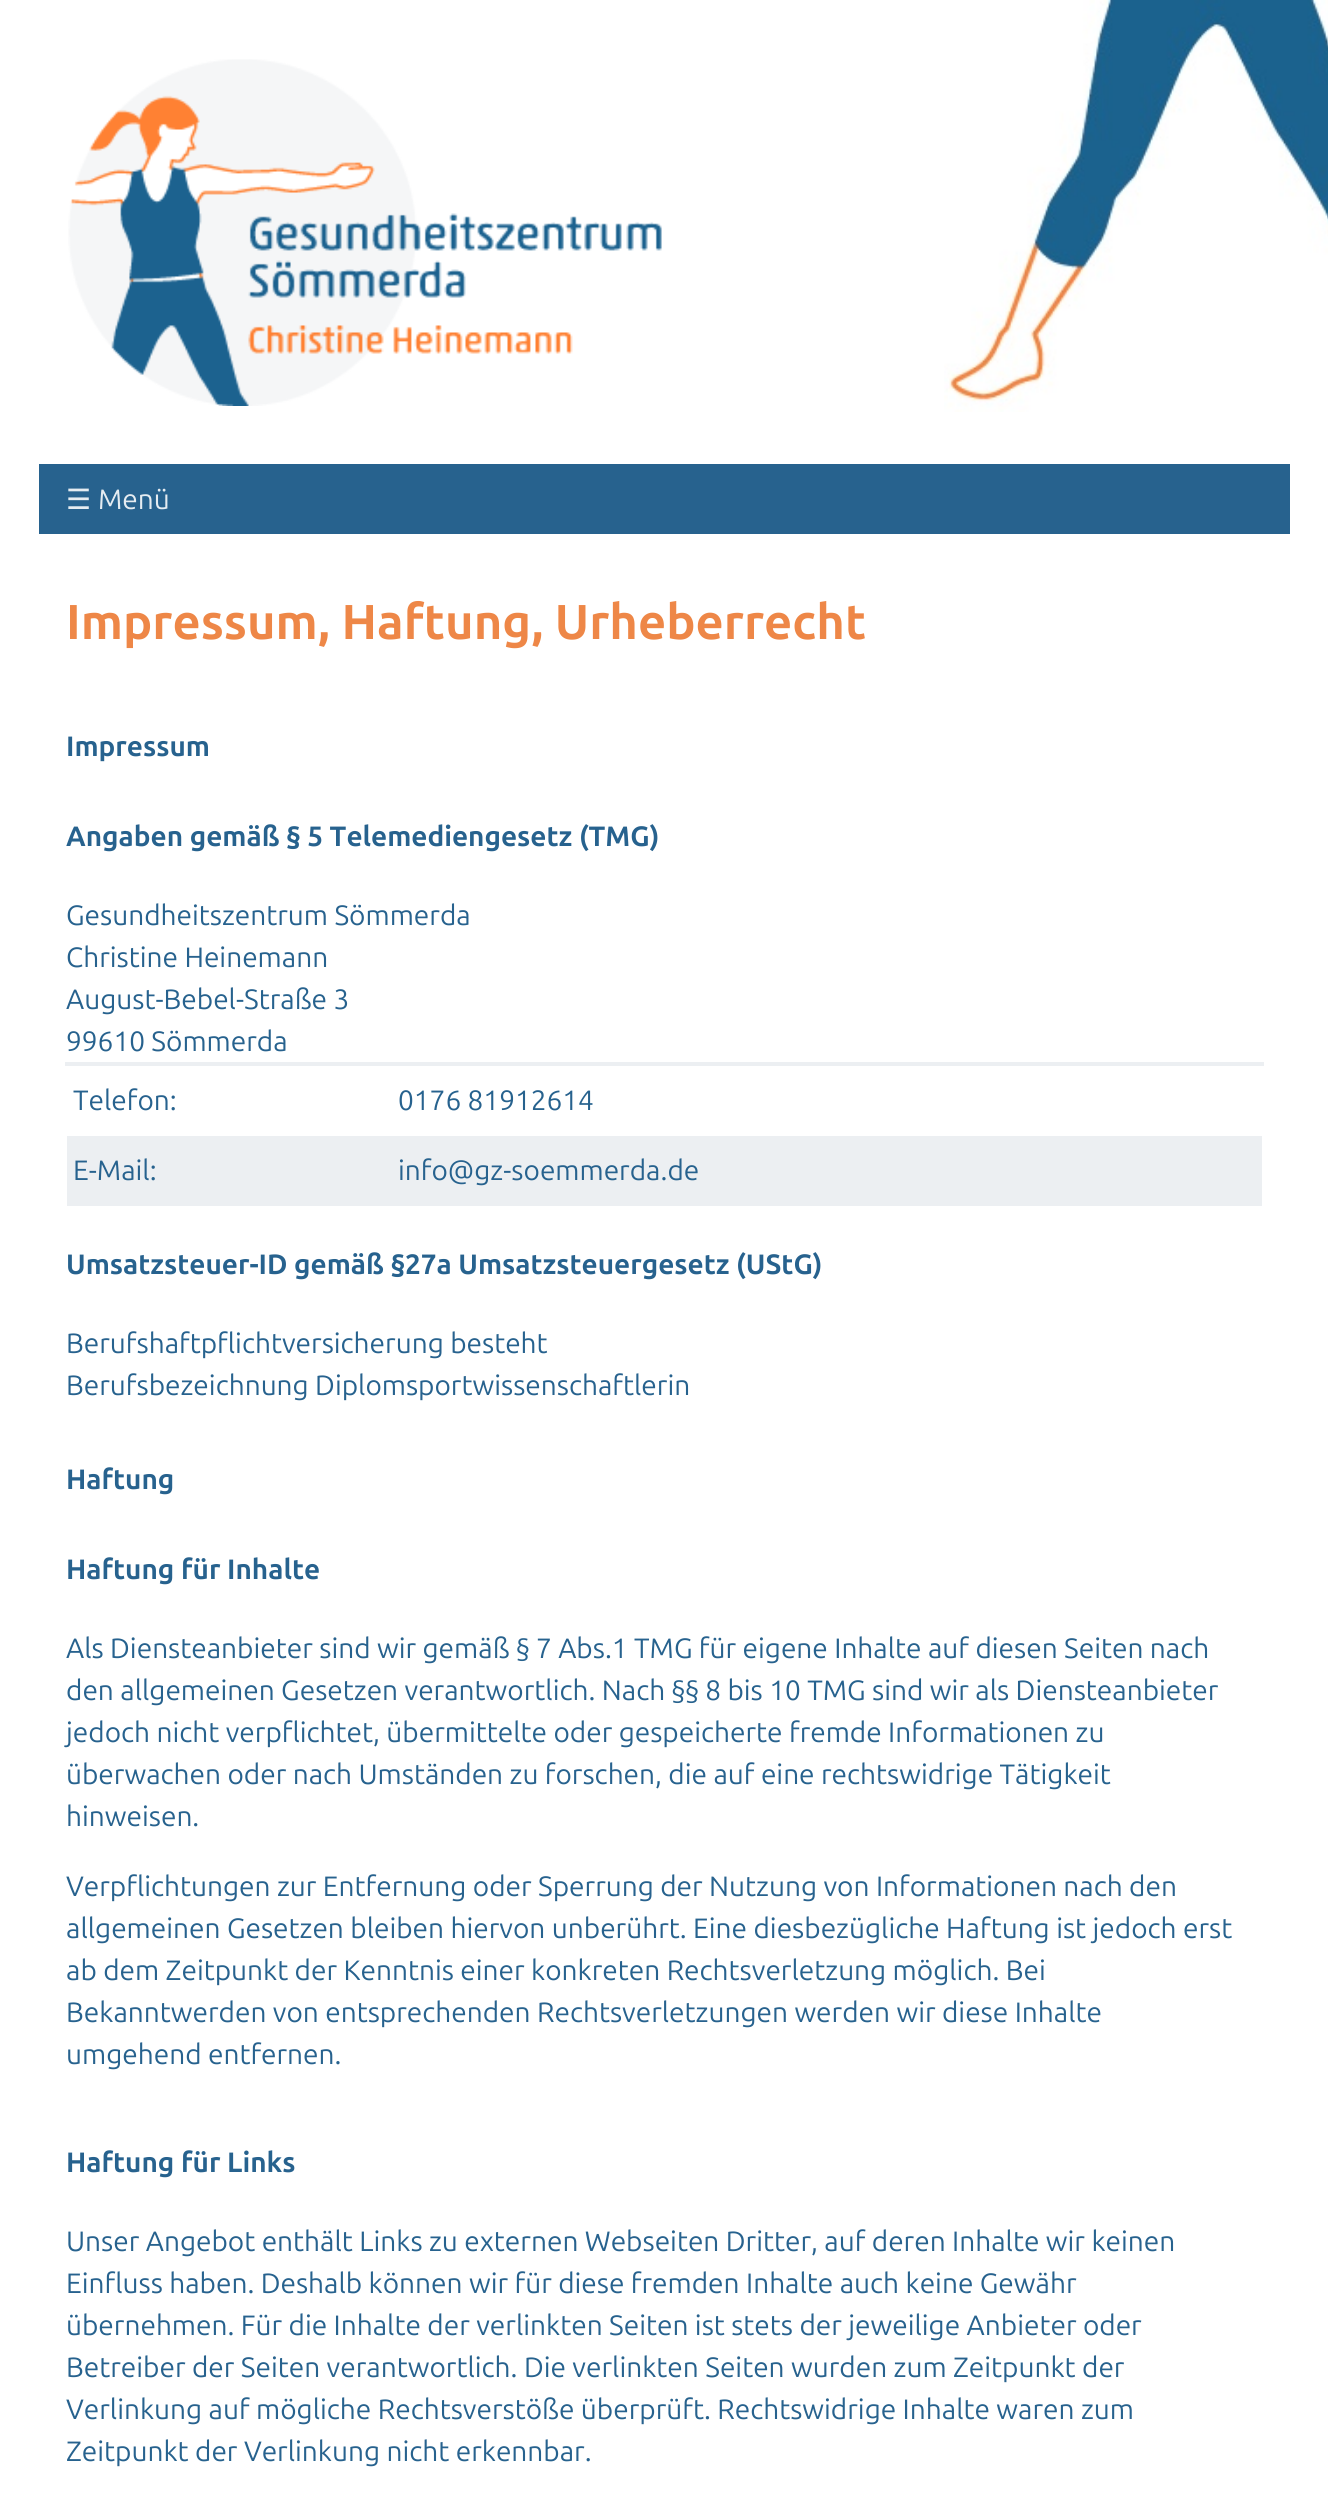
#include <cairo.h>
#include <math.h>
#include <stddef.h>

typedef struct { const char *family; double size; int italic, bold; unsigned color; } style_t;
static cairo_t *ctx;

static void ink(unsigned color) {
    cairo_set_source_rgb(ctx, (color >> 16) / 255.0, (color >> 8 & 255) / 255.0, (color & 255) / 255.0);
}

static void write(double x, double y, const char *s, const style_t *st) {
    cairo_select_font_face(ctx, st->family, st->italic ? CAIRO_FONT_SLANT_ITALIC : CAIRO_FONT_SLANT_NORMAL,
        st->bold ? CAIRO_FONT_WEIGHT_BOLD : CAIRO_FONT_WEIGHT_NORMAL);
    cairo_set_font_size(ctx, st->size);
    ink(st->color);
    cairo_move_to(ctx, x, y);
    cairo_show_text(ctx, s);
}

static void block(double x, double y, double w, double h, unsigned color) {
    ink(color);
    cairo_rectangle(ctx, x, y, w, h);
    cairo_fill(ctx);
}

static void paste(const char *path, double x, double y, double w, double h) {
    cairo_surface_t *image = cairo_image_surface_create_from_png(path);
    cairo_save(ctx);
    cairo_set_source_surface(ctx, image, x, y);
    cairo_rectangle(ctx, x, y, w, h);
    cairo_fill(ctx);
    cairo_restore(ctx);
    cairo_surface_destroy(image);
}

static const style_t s1 = {"DejaVu Sans", 28, 0, 0, 0xe5ecf1};
static const style_t s2 = {"Ubuntu", 28, 0, 0, 0xe5ecf1};
static const style_t s3 = {"Ubuntu", 49, 0, 1, 0xee8747};
static const style_t s4 = {"Ubuntu", 28, 0, 1, 0x27628e};
static const style_t s5 = {"Ubuntu", 28, 0, 0, 0x27628e};

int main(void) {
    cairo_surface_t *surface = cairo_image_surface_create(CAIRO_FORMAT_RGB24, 1328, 2517);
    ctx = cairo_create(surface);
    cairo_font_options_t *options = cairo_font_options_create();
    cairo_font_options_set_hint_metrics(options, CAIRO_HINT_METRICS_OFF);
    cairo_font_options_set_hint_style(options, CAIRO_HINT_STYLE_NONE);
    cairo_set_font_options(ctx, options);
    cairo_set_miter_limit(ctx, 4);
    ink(0xffffff);
    cairo_paint(ctx);
    paste("pic1.png", 944, 0, 384, 412);
    paste("pic2.png", 68, 59, 594, 347);
    block(39, 464, 1251, 70, 0x27628e);
    write(66, 509, "☰", &s1);
    write(98, 509, "Menü", &s2);
    write(66, 639, "Impressum, Haftung, Urheberrecht", &s3);
    write(66, 756, "Impressum", &s4);
    write(66, 846, "Angaben gemäß § 5 Telemediengesetz (TMG)", &s4);
    write(66, 925, "Gesundheitszentrum Sömmerda", &s5);
    write(66, 967, "Christine Heinemann", &s5);
    write(66, 1009, "August-Bebel-Straße 3", &s5);
    write(66, 1051, "99610 Sömmerda", &s5);
    block(65, 1062, 1199, 4, 0xeceff2);
    write(73, 1110, "Telefon:", &s5);
    write(398, 1110, "0176 81912614", &s5);
    block(67, 1136, 1195, 70, 0xeceff2);
    write(73, 1180, "E-Mail:", &s5);
    write(398, 1180, "info@gz-soemmerda.de", &s5);
    write(66, 1274, "Umsatzsteuer-ID gemäß §27a Umsatzsteuergesetz (UStG)", &s4);
    write(66, 1353, "Berufshaftpflichtversicherung besteht", &s5);
    write(66, 1395, "Berufsbezeichnung Diplomsportwissenschaftlerin", &s5);
    write(66, 1489, "Haftung", &s4);
    write(66, 1579, "Haftung für Inhalte", &s4);
    write(66, 1658, "Als Diensteanbieter sind wir gemäß § 7 Abs.1 TMG für eigene Inhalte auf diesen Seiten nach", &s5);
    write(66, 1700, "den allgemeinen Gesetzen verantwortlich. Nach §§ 8 bis 10 TMG sind wir als Diensteanbieter", &s5);
    write(66, 1742, "jedoch nicht verpflichtet, übermittelte oder gespeicherte fremde Informationen zu", &s5);
    write(66, 1784, "überwachen oder nach Umständen zu forschen, die auf eine rechtswidrige Tätigkeit", &s5);
    write(66, 1826, "hinweisen.", &s5);
    write(66, 1896, "Verpflichtungen zur Entfernung oder Sperrung der Nutzung von Informationen nach den", &s5);
    write(66, 1938, "allgemeinen Gesetzen bleiben hiervon unberührt. Eine diesbezügliche Haftung ist jedoch erst", &s5);
    write(66, 1980, "ab dem Zeitpunkt der Kenntnis einer konkreten Rechtsverletzung möglich. Bei", &s5);
    write(66, 2022, "Bekanntwerden von entsprechenden Rechtsverletzungen werden wir diese Inhalte", &s5);
    write(66, 2064, "umgehend entfernen.", &s5);
    write(66, 2172, "Haftung für Links", &s4);
    write(66, 2251, "Unser Angebot enthält Links zu externen Webseiten Dritter, auf deren Inhalte wir keinen", &s5);
    write(66, 2293, "Einfluss haben. Deshalb können wir für diese fremden Inhalte auch keine Gewähr", &s5);
    write(66, 2335, "übernehmen. Für die Inhalte der verlinkten Seiten ist stets der jeweilige Anbieter oder", &s5);
    write(66, 2377, "Betreiber der Seiten verantwortlich. Die verlinkten Seiten wurden zum Zeitpunkt der", &s5);
    write(66, 2419, "Verlinkung auf mögliche Rechtsverstöße überprüft. Rechtswidrige Inhalte waren zum", &s5);
    write(66, 2461, "Zeitpunkt der Verlinkung nicht erkennbar.", &s5);
    cairo_surface_write_to_png(surface, "screenshot.png");
    cairo_font_options_destroy(options);
    cairo_destroy(ctx);
    cairo_surface_destroy(surface);
    return 0;
}
